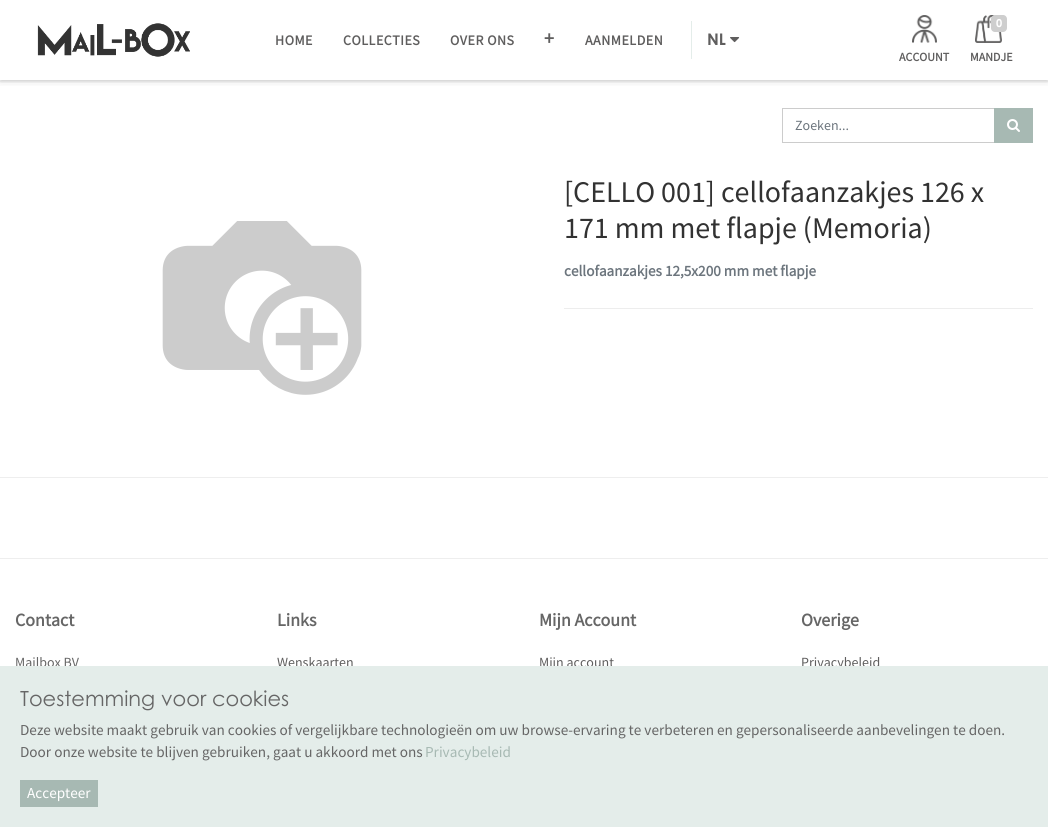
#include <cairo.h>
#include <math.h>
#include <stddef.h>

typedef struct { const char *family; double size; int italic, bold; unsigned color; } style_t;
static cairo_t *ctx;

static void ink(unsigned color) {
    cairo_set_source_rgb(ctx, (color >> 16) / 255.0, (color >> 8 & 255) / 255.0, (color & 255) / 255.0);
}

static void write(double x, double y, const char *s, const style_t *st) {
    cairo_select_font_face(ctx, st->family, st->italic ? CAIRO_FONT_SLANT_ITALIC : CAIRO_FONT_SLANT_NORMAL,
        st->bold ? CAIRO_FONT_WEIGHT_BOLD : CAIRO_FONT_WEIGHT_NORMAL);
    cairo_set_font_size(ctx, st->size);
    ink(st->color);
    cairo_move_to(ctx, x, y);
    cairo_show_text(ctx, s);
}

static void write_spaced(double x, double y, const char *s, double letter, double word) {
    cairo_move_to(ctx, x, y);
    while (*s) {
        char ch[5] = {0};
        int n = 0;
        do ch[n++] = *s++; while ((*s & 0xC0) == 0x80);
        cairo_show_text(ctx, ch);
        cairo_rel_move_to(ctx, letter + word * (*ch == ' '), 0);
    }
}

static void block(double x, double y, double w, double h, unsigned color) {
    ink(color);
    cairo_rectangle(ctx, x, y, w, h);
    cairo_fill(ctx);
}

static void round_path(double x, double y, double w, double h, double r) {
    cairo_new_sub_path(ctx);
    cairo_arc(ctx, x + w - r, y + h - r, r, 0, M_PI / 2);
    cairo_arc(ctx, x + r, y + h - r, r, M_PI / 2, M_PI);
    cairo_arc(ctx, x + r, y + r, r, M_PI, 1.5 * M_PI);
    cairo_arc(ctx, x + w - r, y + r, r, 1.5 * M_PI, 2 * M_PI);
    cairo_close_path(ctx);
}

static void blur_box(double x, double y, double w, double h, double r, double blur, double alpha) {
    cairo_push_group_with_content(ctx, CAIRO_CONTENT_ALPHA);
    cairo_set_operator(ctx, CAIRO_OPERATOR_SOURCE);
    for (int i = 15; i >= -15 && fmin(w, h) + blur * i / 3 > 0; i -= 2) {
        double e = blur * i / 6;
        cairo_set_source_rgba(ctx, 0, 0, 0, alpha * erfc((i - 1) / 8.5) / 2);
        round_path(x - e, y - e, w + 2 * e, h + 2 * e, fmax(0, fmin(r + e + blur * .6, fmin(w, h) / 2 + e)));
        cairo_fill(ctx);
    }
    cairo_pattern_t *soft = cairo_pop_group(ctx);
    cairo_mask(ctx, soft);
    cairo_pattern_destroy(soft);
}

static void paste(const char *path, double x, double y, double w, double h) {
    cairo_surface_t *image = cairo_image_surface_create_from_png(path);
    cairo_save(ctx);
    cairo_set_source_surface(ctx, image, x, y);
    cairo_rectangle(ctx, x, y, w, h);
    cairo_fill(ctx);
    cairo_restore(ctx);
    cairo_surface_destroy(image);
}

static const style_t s1 = {"Century Gothic", 16, 0, 1, 0x5f5e5e};
static const style_t s2 = {"Century Gothic", 11, 0, 1, 0xffffff};
static const style_t s3 = {"Source Sans Pro", 12, 0, 1, 0x5f5e5e};
static const style_t s4 = {"Source Sans Pro", 14, 0, 0, 0x6c757d};
static const style_t s5 = {"Source Sans Pro", 30, 0, 0, 0x323232};
static const style_t s6 = {"Source Sans Pro", 15.2, 0, 1, 0x6c757d};
static const style_t s7 = {"Source Sans Pro", 18, 0, 1, 0x666666};
static const style_t s8 = {"Source Sans Pro", 14, 0, 0, 0x666666};
static const style_t s9 = {"Source Sans Pro", 14, 0, 0, 0x5f5e5e};
static const style_t s10 = {"Century Gothic", 20.9, 0, 0, 0x666666};
static const style_t s11 = {"Source Sans Pro", 15.2, 0, 0, 0x666666};
static const style_t s12 = {"Source Sans Pro", 15.2, 0, 0, 0xa7b9b3};
static const style_t s13 = {"Source Sans Pro", 15.2, 0, 0, 0xffffff};

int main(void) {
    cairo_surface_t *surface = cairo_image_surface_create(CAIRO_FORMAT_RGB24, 1048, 827);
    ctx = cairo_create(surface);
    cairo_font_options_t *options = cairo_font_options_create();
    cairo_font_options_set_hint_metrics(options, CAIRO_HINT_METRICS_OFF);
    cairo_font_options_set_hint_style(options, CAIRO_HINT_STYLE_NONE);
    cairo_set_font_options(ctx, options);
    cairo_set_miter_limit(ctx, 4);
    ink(0xffffff);
    cairo_paint(ctx);
    cairo_save(ctx);
    cairo_rectangle(ctx, 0, 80, 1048, 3);
    cairo_clip(ctx);
    ink(0x000000);
    blur_box(0, 2, 1048, 80, 0, 1, 0.1);
    cairo_restore(ctx);
    cairo_save(ctx);
    cairo_rectangle(ctx, 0, 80, 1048, 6);
    cairo_clip(ctx);
    ink(0x000000);
    blur_box(0, 0, 1048, 80, 0, 6, 0.12);
    cairo_restore(ctx);
    paste("pic1.png", 37, 23, 153, 34);
    cairo_select_font_face(ctx, "Source Sans Pro", CAIRO_FONT_SLANT_NORMAL, CAIRO_FONT_WEIGHT_BOLD);
    cairo_set_font_size(ctx, 14);
    ink(0x5f5e5e);
    write_spaced(275, 45, "HOME", 0.5, 0);
    write_spaced(343, 45, "COLLECTIES", 0.5, 0);
    write_spaced(450, 45, "OVER ONS", 0.5, 0);
    cairo_set_font_size(ctx, 20);
    write_spaced(544, 45, "+", 0.5, 0);
    cairo_set_font_size(ctx, 14);
    write_spaced(585, 45, "AANMELDEN", 0.5, 0);
    block(691, 21, 1, 38, 0xe4edea);
    write(707, 45, "NL", &s1);
    paste("pic2.png", 730, 37, 10, 6);
    paste("pic3.png", 975, 15, 27, 28);
    ink(0xcecece);
    round_path(991, 15, 16, 17, 4);
    cairo_fill(ctx);
    write(996, 27, "0", &s2);
    write(970, 61, "MANDJE", &s3);
    paste("pic4.png", 912, 15, 25, 28);
    write(899, 61, "ACCOUNT", &s3);
    cairo_rectangle(ctx, 782.5, 108.5, 212, 34);
    ink(0xcccccc);
    cairo_set_line_width(ctx, 1);
    cairo_stroke(ctx);
    write(795, 130, "Zoeken...", &s4);
    block(994, 108, 39, 35, 0xa7b9b3);
    paste("pic5.png", 1007, 119, 13, 13);
    paste("pic6.png", 162, 221, 200, 174);
    write(564, 202, "[CELLO 001] cellofaanzakjes 126 x", &s5);
    write(564, 238, "171 mm met flapje (Memoria)", &s5);
    write(564, 276, "cellofaanzakjes 12,5x200 mm met flapje", &s6);
    block(564, 308, 469, 1, 0xededed);
    block(0, 477, 1048, 1, 0xeeeeee);
    block(0, 558, 1048, 1, 0xeeeeee);
    write(15, 626, "Contact", &s7);
    write(15, 667, "Mailbox BV", &s8);
    write(277, 626, "Links", &s7);
    write(277, 667, "Wenskaarten", &s9);
    write(539, 626, "Mijn Account", &s7);
    write(539, 667, "Mijn account", &s9);
    write(801, 626, "Overige", &s7);
    write(801, 667, "Privacybeleid", &s9);
    block(0, 666, 1048, 161, 0xe4edea);
    write(20, 706, "Toestemming voor cookies", &s10);
    write(20, 735, "Deze website maakt gebruik van cookies of vergelijkbare technologieën om uw browse-ervaring te verbeteren en gepersonaliseerde aanbevelingen te doen.", &s11);
    write(20, 757, "Door onze website te blijven gebruiken, gaat u akkoord met ons", &s11);
    write(425, 757, "Privacybeleid", &s12);
    block(20, 780, 78, 27, 0xa7b9b3);
    write(27, 798, "Accepteer", &s13);
    cairo_surface_write_to_png(surface, "screenshot.png");
    cairo_font_options_destroy(options);
    cairo_destroy(ctx);
    cairo_surface_destroy(surface);
    return 0;
}
